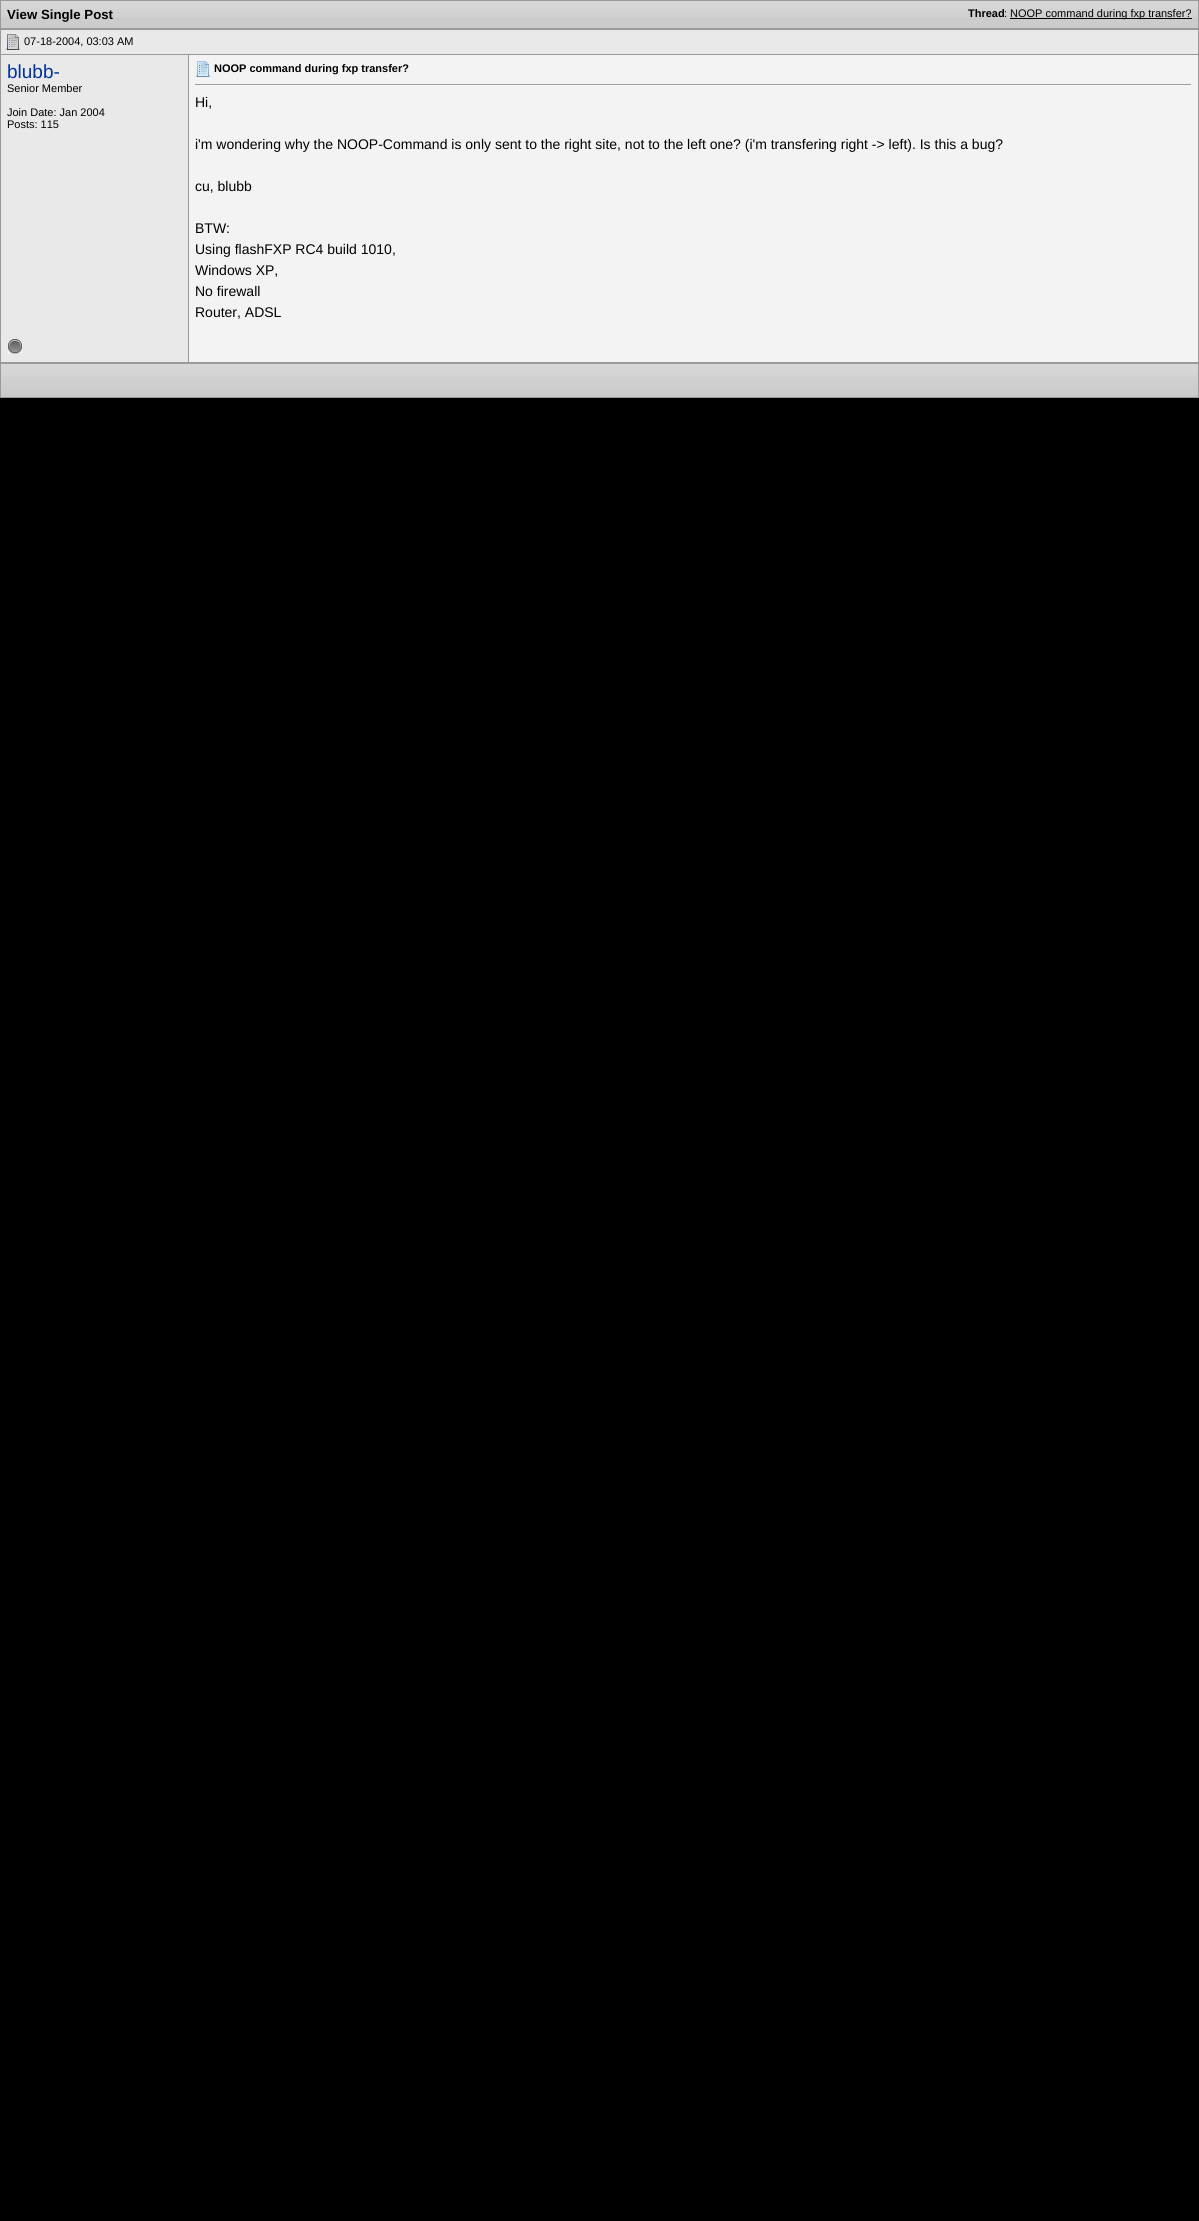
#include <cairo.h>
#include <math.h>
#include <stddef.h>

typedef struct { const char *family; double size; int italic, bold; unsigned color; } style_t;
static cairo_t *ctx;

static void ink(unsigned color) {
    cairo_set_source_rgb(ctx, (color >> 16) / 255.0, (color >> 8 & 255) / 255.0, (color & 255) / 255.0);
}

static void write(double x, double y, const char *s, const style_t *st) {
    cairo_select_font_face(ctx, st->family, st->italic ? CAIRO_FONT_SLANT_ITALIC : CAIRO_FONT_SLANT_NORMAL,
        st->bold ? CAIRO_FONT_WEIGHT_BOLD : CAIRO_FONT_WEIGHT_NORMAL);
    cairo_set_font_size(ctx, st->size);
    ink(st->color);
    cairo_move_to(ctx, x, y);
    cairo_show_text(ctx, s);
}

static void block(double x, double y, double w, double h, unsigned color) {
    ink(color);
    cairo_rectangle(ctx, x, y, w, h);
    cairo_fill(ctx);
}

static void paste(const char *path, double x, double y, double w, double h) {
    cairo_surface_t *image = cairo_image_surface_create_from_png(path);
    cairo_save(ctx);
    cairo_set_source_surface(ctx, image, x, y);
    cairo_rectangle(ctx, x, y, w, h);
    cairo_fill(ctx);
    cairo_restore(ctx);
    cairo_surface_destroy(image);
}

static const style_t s1 = {"Liberation Sans", 13.25, 0, 1, 0x000000};
static const style_t s2 = {"Liberation Sans", 11, 0, 1, 0x000000};
static const style_t s3 = {"Liberation Sans", 11, 0, 0, 0x000000};
static const style_t s4 = {"Liberation Sans", 19, 0, 0, 0x003399};
static const style_t s5 = {"Liberation Sans", 14, 0, 0, 0x000000};

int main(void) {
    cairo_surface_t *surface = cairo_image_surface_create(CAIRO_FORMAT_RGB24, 1199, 2221);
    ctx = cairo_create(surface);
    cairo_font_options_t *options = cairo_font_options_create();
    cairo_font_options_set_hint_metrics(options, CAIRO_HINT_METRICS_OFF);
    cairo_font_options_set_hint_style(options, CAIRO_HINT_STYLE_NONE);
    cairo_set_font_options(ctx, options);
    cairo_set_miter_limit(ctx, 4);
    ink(0x000000);
    cairo_paint(ctx);
    block(0, 0, 1199, 29, 0x999999);
    block(1, 17, 1197, 11, 0xcccccc);
    paste("pic1.png", 1, 1, 1197, 16);
    write(7, 19, "View Single Post", &s1);
    write(968, 17, "Thread", &s2);
    write(1004, 17, ":", &s3);
    block(1010, 18, 182, 1, 0x000000);
    write(1010, 17, "NOOP command during fxp transfer?", &s3);
    block(1, 30, 1197, 24, 0xe9e9e9);
    block(0, 29, 1199, 1, 0x999999);
    block(0, 54, 189, 1, 0x999999);
    block(0, 29, 1, 300, 0x999999);
    paste("pic2.png", 5, 34, 16, 16);
    write(24, 45, "07-18-2004, 03:03 AM", &s3);
    block(1198, 29, 1, 334, 0x999999);
    block(189, 54, 1010, 1, 0x999999);
    block(1, 55, 187, 307, 0xe9e9e9);
    block(188, 55, 1, 308, 0x999999);
    write(7, 78, "blubb-", &s4);
    write(7, 92, "Senior Member", &s3);
    write(7, 116, "Join Date: Jan 2004", &s3);
    write(7, 128, "Posts: 115", &s3);
    block(189, 55, 1009, 307, 0xf3f3f3);
    paste("pic3.png", 195, 61, 16, 16);
    write(214, 72, "NOOP command during fxp transfer?", &s2);
    block(195, 84, 997, 1, 0x9f9f9f);
    block(1191, 84, 1, 1, 0xeeeeee);
    write(195, 107, "Hi,", &s5);
    write(195, 149, "i'm wondering why the NOOP-Command is only sent to the right site, not to the left one? (i'm transfering right -> left). Is this a bug?", &s5);
    write(195, 191, "cu, blubb", &s5);
    write(195, 233, "BTW:", &s5);
    write(195, 254, "Using flashFXP RC4 build 1010,", &s5);
    write(195, 275, "Windows XP,", &s5);
    write(195, 296, "No firewall", &s5);
    write(195, 317, "Router, ADSL", &s5);
    block(0, 362, 1199, 36, 0x999999);
    block(0, 329, 1, 34, 0x999999);
    paste("pic4.png", 7, 339, 16, 15);
    paste("pic5.png", 1, 364, 1197, 33);
    cairo_surface_write_to_png(surface, "screenshot.png");
    cairo_font_options_destroy(options);
    cairo_destroy(ctx);
    cairo_surface_destroy(surface);
    return 0;
}
